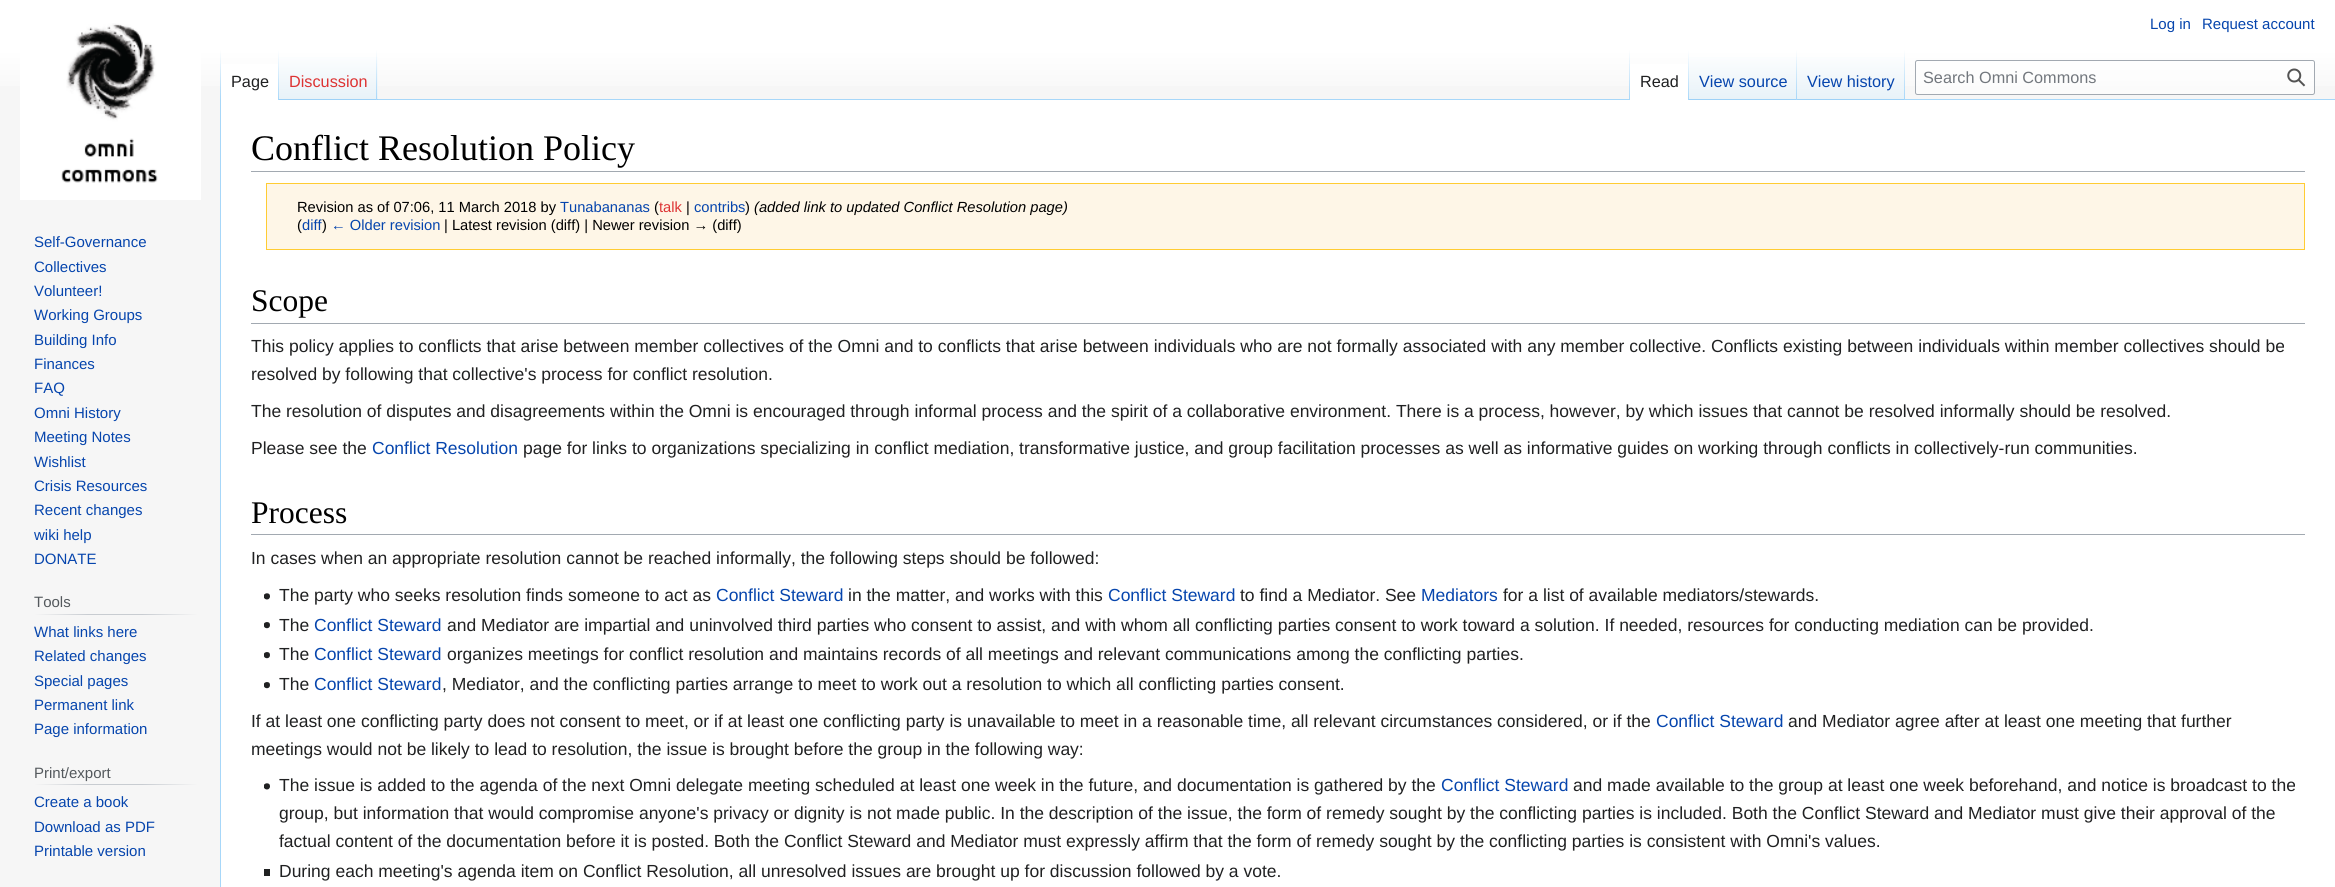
#include <cairo.h>
#include <math.h>
#include <stddef.h>

typedef struct { const char *family; double size; int italic, bold; unsigned color; } style_t;
static cairo_t *ctx;

static void ink(unsigned color) {
    cairo_set_source_rgb(ctx, (color >> 16) / 255.0, (color >> 8 & 255) / 255.0, (color & 255) / 255.0);
}

static void write(double x, double y, const char *s, const style_t *st) {
    cairo_select_font_face(ctx, st->family, st->italic ? CAIRO_FONT_SLANT_ITALIC : CAIRO_FONT_SLANT_NORMAL,
        st->bold ? CAIRO_FONT_WEIGHT_BOLD : CAIRO_FONT_WEIGHT_NORMAL);
    cairo_set_font_size(ctx, st->size);
    ink(st->color);
    cairo_move_to(ctx, x, y);
    cairo_show_text(ctx, s);
}

static void block(double x, double y, double w, double h, unsigned color) {
    ink(color);
    cairo_rectangle(ctx, x, y, w, h);
    cairo_fill(ctx);
}

static void round_path(double x, double y, double w, double h, double r) {
    cairo_new_sub_path(ctx);
    cairo_arc(ctx, x + w - r, y + h - r, r, 0, M_PI / 2);
    cairo_arc(ctx, x + r, y + h - r, r, M_PI / 2, M_PI);
    cairo_arc(ctx, x + r, y + r, r, M_PI, 1.5 * M_PI);
    cairo_arc(ctx, x + w - r, y + r, r, 1.5 * M_PI, 2 * M_PI);
    cairo_close_path(ctx);
}

static void paste(const char *path, double x, double y, double w, double h) {
    cairo_surface_t *image = cairo_image_surface_create_from_png(path);
    cairo_save(ctx);
    cairo_set_source_surface(ctx, image, x, y);
    cairo_rectangle(ctx, x, y, w, h);
    cairo_fill(ctx);
    cairo_restore(ctx);
    cairo_surface_destroy(image);
}

static const style_t s1 = {"Liberation Sans", 15, 0, 0, 0x0645ad};
static const style_t s2 = {"Liberation Sans", 16.25, 0, 0, 0x202122};
static const style_t s3 = {"Liberation Sans", 16.25, 0, 0, 0xdd3333};
static const style_t s4 = {"Liberation Sans", 16.25, 0, 0, 0x0645ad};
static const style_t s5 = {"Liberation Sans", 16.25, 0, 0, 0x72777d};
static const style_t s6 = {"Liberation Sans", 15, 0, 0, 0x54595d};
static const style_t s7 = {"Liberation Serif", 36, 0, 0, 0x000000};
static const style_t s8 = {"Liberation Sans", 14.7, 0, 0, 0x000000};
static const style_t s9 = {"Liberation Sans", 14.7, 0, 0, 0x0645ad};
static const style_t s10 = {"Liberation Sans", 14.7, 0, 0, 0xdd3333};
static const style_t s11 = {"Liberation Sans", 14.7, 1, 0, 0x000000};
static const style_t s12 = {"Liberation Serif", 31.5, 0, 0, 0x000000};
static const style_t s13 = {"Liberation Sans", 17.5, 0, 0, 0x202122};
static const style_t s14 = {"Liberation Sans", 17.5, 0, 0, 0x0645ad};

int main(void) {
    cairo_surface_t *surface = cairo_image_surface_create(CAIRO_FORMAT_RGB24, 2335, 887);
    ctx = cairo_create(surface);
    cairo_font_options_t *options = cairo_font_options_create();
    cairo_font_options_set_hint_metrics(options, CAIRO_HINT_METRICS_OFF);
    cairo_font_options_set_hint_style(options, CAIRO_HINT_STYLE_NONE);
    cairo_set_font_options(ctx, options);
    cairo_set_miter_limit(ctx, 4);
    cairo_pattern_t *gradient;
    ink(0xf6f6f6);
    cairo_paint(ctx);
    gradient = cairo_pattern_create_linear(1168, 0, 1168, 100);
    cairo_pattern_add_color_stop_rgba(gradient, 0.5, 1, 1, 1, 1);
    cairo_pattern_add_color_stop_rgba(gradient, 1, 0.965, 0.965, 0.965, 1);
    cairo_set_source(ctx, gradient);
    cairo_pattern_destroy(gradient);
    cairo_rectangle(ctx, 0, 0, 2335, 86);
    cairo_fill(ctx);
    write(2150, 29, "Log in", &s1);
    write(2202, 29, "Request account", &s1);
    block(220, 99, 1, 788, 0xa7d7f9);
    gradient = cairo_pattern_create_linear(221, 50, 221, 100);
    cairo_pattern_add_color_stop_rgba(gradient, 0, 0.655, 0.843, 0.976, 0);
    cairo_pattern_add_color_stop_rgba(gradient, 1, 0.655, 0.843, 0.976, 1);
    cairo_set_source(ctx, gradient);
    cairo_pattern_destroy(gradient);
    cairo_rectangle(ctx, 220, 50, 1, 50);
    cairo_fill(ctx);
    block(221, 64, 57, 36, 0xffffff);
    gradient = cairo_pattern_create_linear(278, 50, 278, 100);
    cairo_pattern_add_color_stop_rgba(gradient, 0, 1, 1, 1, 1);
    cairo_pattern_add_color_stop_rgba(gradient, 1, 0.655, 0.843, 0.976, 1);
    cairo_set_source(ctx, gradient);
    cairo_pattern_destroy(gradient);
    cairo_rectangle(ctx, 278, 50, 1, 50);
    cairo_fill(ctx);
    write(231, 87, "Page", &s2);
    gradient = cairo_pattern_create_linear(328, 100, 328, 50);
    cairo_pattern_add_color_stop_rgba(gradient, 0, 0.467, 0.757, 0.965, 1);
    cairo_pattern_add_color_stop_rgba(gradient, 0.03, 0.91, 0.949, 0.973, 1);
    cairo_pattern_add_color_stop_rgba(gradient, 1, 1, 1, 1, 1);
    cairo_set_source(ctx, gradient);
    cairo_pattern_destroy(gradient);
    cairo_rectangle(ctx, 279, 57, 99, 43);
    cairo_fill(ctx);
    gradient = cairo_pattern_create_linear(377, 50, 377, 100);
    cairo_pattern_add_color_stop_rgba(gradient, 0, 0.655, 0.843, 0.976, 0);
    cairo_pattern_add_color_stop_rgba(gradient, 1, 0.655, 0.843, 0.976, 1);
    cairo_set_source(ctx, gradient);
    cairo_pattern_destroy(gradient);
    cairo_rectangle(ctx, 376, 50, 1, 50);
    cairo_fill(ctx);
    write(289, 87, "Discussion", &s3);
    block(378, 99, 1957, 1, 0xa7d7f9);
    gradient = cairo_pattern_create_linear(1629, 50, 1629, 100);
    cairo_pattern_add_color_stop_rgba(gradient, 0, 0.655, 0.843, 0.976, 0);
    cairo_pattern_add_color_stop_rgba(gradient, 1, 0.655, 0.843, 0.976, 1);
    cairo_set_source(ctx, gradient);
    cairo_pattern_destroy(gradient);
    cairo_rectangle(ctx, 1629, 50, 1, 50);
    cairo_fill(ctx);
    block(1630, 64, 58, 36, 0xffffff);
    gradient = cairo_pattern_create_linear(1688, 50, 1688, 100);
    cairo_pattern_add_color_stop_rgba(gradient, 0, 1, 1, 1, 1);
    cairo_pattern_add_color_stop_rgba(gradient, 1, 0.655, 0.843, 0.976, 1);
    cairo_set_source(ctx, gradient);
    cairo_pattern_destroy(gradient);
    cairo_rectangle(ctx, 1688, 50, 1, 50);
    cairo_fill(ctx);
    write(1640, 87, "Read", &s2);
    gradient = cairo_pattern_create_linear(1743, 100, 1743, 50);
    cairo_pattern_add_color_stop_rgba(gradient, 0, 0.467, 0.757, 0.965, 1);
    cairo_pattern_add_color_stop_rgba(gradient, 0.03, 0.91, 0.949, 0.973, 1);
    cairo_pattern_add_color_stop_rgba(gradient, 1, 1, 1, 1, 1);
    cairo_set_source(ctx, gradient);
    cairo_pattern_destroy(gradient);
    cairo_rectangle(ctx, 1689, 57, 109, 43);
    cairo_fill(ctx);
    gradient = cairo_pattern_create_linear(1797, 50, 1797, 100);
    cairo_pattern_add_color_stop_rgba(gradient, 0, 0.655, 0.843, 0.976, 0);
    cairo_pattern_add_color_stop_rgba(gradient, 1, 0.655, 0.843, 0.976, 1);
    cairo_set_source(ctx, gradient);
    cairo_pattern_destroy(gradient);
    cairo_rectangle(ctx, 1796, 50, 1, 50);
    cairo_fill(ctx);
    write(1699, 87, "View source", &s4);
    gradient = cairo_pattern_create_linear(1851, 100, 1851, 50);
    cairo_pattern_add_color_stop_rgba(gradient, 0, 0.467, 0.757, 0.965, 1);
    cairo_pattern_add_color_stop_rgba(gradient, 0.03, 0.91, 0.949, 0.973, 1);
    cairo_pattern_add_color_stop_rgba(gradient, 1, 1, 1, 1, 1);
    cairo_set_source(ctx, gradient);
    cairo_pattern_destroy(gradient);
    cairo_rectangle(ctx, 1798, 57, 107, 43);
    cairo_fill(ctx);
    gradient = cairo_pattern_create_linear(1904, 50, 1904, 100);
    cairo_pattern_add_color_stop_rgba(gradient, 0, 0.655, 0.843, 0.976, 0);
    cairo_pattern_add_color_stop_rgba(gradient, 1, 0.655, 0.843, 0.976, 1);
    cairo_set_source(ctx, gradient);
    cairo_pattern_destroy(gradient);
    cairo_rectangle(ctx, 1904, 50, 1, 50);
    cairo_fill(ctx);
    write(1807, 87, "View history", &s4);
    cairo_set_source_rgba(ctx, 1, 1, 1, 0.5);
    round_path(1915.5, 60.5, 399, 34, 2);
    cairo_fill_preserve(ctx);
    ink(0xa2a9b1);
    cairo_set_line_width(ctx, 1);
    cairo_stroke(ctx);
    write(1923, 83, "Search Omni Commons", &s5);
    paste("pic1.png", 2287, 68, 19, 19);
    paste("pic2.png", 20, 23, 181, 177);
    write(34, 247, "Self-Governance", &s1);
    write(34, 272, "Collectives", &s1);
    write(34, 296, "Volunteer!", &s1);
    write(34, 320, "Working Groups", &s1);
    write(34, 345, "Building Info", &s1);
    write(34, 369, "Finances", &s1);
    write(34, 393, "FAQ", &s1);
    write(34, 418, "Omni History", &s1);
    write(34, 442, "Meeting Notes", &s1);
    write(34, 467, "Wishlist", &s1);
    write(34, 491, "Crisis Resources", &s1);
    write(34, 515, "Recent changes", &s1);
    write(34, 540, "wiki help", &s1);
    write(34, 564, "DONATE", &s1);
    gradient = cairo_pattern_create_linear(34, 614, 198, 614);
    cairo_pattern_add_color_stop_rgba(gradient, 0, 0.965, 0.965, 0.965, 1);
    cairo_pattern_add_color_stop_rgba(gradient, 0.33, 0.784, 0.8, 0.82, 1);
    cairo_pattern_add_color_stop_rgba(gradient, 0.66, 0.784, 0.8, 0.82, 1);
    cairo_pattern_add_color_stop_rgba(gradient, 1, 0.965, 0.965, 0.965, 1);
    cairo_set_source(ctx, gradient);
    cairo_pattern_destroy(gradient);
    cairo_rectangle(ctx, 34, 614, 164, 1);
    cairo_fill(ctx);
    write(34, 607, "Tools", &s6);
    write(34, 637, "What links here", &s1);
    write(34, 661, "Related changes", &s1);
    write(34, 686, "Special pages", &s1);
    write(34, 710, "Permanent link", &s1);
    write(34, 734, "Page information", &s1);
    gradient = cairo_pattern_create_linear(34, 784, 198, 784);
    cairo_pattern_add_color_stop_rgba(gradient, 0, 0.965, 0.965, 0.965, 1);
    cairo_pattern_add_color_stop_rgba(gradient, 0.33, 0.784, 0.8, 0.82, 1);
    cairo_pattern_add_color_stop_rgba(gradient, 0.66, 0.784, 0.8, 0.82, 1);
    cairo_pattern_add_color_stop_rgba(gradient, 1, 0.965, 0.965, 0.965, 1);
    cairo_set_source(ctx, gradient);
    cairo_pattern_destroy(gradient);
    cairo_rectangle(ctx, 34, 784, 164, 1);
    cairo_fill(ctx);
    write(34, 778, "Print/export", &s6);
    write(34, 807, "Create a book", &s1);
    write(34, 832, "Download as PDF", &s1);
    write(34, 856, "Printable version", &s1);
    block(221, 100, 2114, 787, 0xffffff);
    block(251, 171, 2054, 1, 0xa2a9b1);
    write(251, 160, "Conflict Resolution Policy", &s7);
    ink(0xfef6e7);
    cairo_rectangle(ctx, 266.5, 183.5, 2038, 66);
    cairo_fill_preserve(ctx);
    ink(0xffcc33);
    cairo_stroke(ctx);
    write(297, 212, "Revision as of 07:06, 11 March 2018 by", &s8);
    write(560, 212, "Tunabananas", &s9);
    write(654, 212, "(", &s8);
    write(659, 212, "talk", &s10);
    write(686, 212, "|", &s8);
    write(694, 212, "contribs", &s9);
    write(745, 212, ")", &s8);
    write(754, 212, "(added link to updated Conflict Resolution page)", &s11);
    write(297, 230, "(", &s8);
    write(302, 230, "diff", &s9);
    write(322, 230, ")", &s8);
    write(331, 230, "← Older revision", &s9);
    write(444, 230, "| Latest revision (diff) | Newer revision → (diff)", &s8);
    block(251, 323, 2054, 1, 0xa2a9b1);
    write(251, 311, "Scope", &s12);
    write(251, 352, "This policy applies to conflicts that arise between member collectives of the Omni and to conflicts that arise between individuals who are not formally associated with any member collective. Conflicts existing between individuals within member collectives should be", &s13);
    write(251, 380, "resolved by following that collective's process for conflict resolution.", &s13);
    write(251, 417, "The resolution of disputes and disagreements within the Omni is encouraged through informal process and the spirit of a collaborative environment. There is a process, however, by which issues that cannot be resolved informally should be resolved.", &s13);
    write(251, 454, "Please see the", &s13);
    write(372, 454, "Conflict Resolution", &s14);
    write(523, 454, "page for links to organizations specializing in conflict mediation, transformative justice, and group facilitation processes as well as informative guides on working through conflicts in collectively-run communities.", &s13);
    block(251, 534, 2054, 1, 0xa2a9b1);
    write(251, 523, "Process", &s12);
    write(251, 564, "In cases when an appropriate resolution cannot be reached informally, the following steps should be followed:", &s13);
    paste("pic3.png", 264, 593, 6, 7);
    write(279, 601, "The party who seeks resolution finds someone to act as", &s13);
    write(716, 601, "Conflict Steward", &s14);
    write(848, 601, "in the matter, and works with this", &s13);
    write(1108, 601, "Conflict Steward", &s14);
    write(1240, 601, "to find a Mediator. See", &s13);
    write(1421, 601, "Mediators", &s14);
    write(1503, 601, "for a list of available mediators/stewards.", &s13);
    paste("pic4.png", 264, 622, 6, 7);
    write(279, 631, "The", &s13);
    write(314, 631, "Conflict Steward", &s14);
    write(447, 631, "and Mediator are impartial and uninvolved third parties who consent to assist, and with whom all conflicting parties consent to work toward a solution. If needed, resources for conducting mediation can be provided.", &s13);
    paste("pic4.png", 264, 652, 6, 7);
    write(279, 660, "The", &s13);
    write(314, 660, "Conflict Steward", &s14);
    write(447, 660, "organizes meetings for conflict resolution and maintains records of all meetings and relevant communications among the conflicting parties.", &s13);
    paste("pic4.png", 264, 682, 6, 7);
    write(279, 690, "The", &s13);
    write(314, 690, "Conflict Steward", &s14);
    write(442, 690, ", Mediator, and the conflicting parties arrange to meet to work out a resolution to which all conflicting parties consent.", &s13);
    write(251, 727, "If at least one conflicting party does not consent to meet, or if at least one conflicting party is unavailable to meet in a reasonable time, all relevant circumstances considered, or if the", &s13);
    write(1656, 727, "Conflict Steward", &s14);
    write(1788, 727, "and Mediator agree after at least one meeting that further", &s13);
    write(251, 755, "meetings would not be likely to lead to resolution, the issue is brought before the group in the following way:", &s13);
    paste("pic3.png", 264, 783, 6, 7);
    write(279, 791, "The issue is added to the agenda of the next Omni delegate meeting scheduled at least one week in the future, and documentation is gathered by the", &s13);
    write(1441, 791, "Conflict Steward", &s14);
    write(1573, 791, "and made available to the group at least one week beforehand, and notice is broadcast to the", &s13);
    write(279, 819, "group, but information that would compromise anyone's privacy or dignity is not made public. In the description of the issue, the form of remedy sought by the conflicting parties is included. Both the Conflict Steward and Mediator must give their approval of the", &s13);
    write(279, 847, "factual content of the documentation before it is posted. Both the Conflict Steward and Mediator must expressly affirm that the form of remedy sought by the conflicting parties is consistent with Omni's values.", &s13);
    block(264, 869, 6, 7, 0x202122);
    write(279, 877, "During each meeting's agenda item on Conflict Resolution, all unresolved issues are brought up for discussion followed by a vote.", &s13);
    cairo_surface_write_to_png(surface, "screenshot.png");
    cairo_font_options_destroy(options);
    cairo_destroy(ctx);
    cairo_surface_destroy(surface);
    return 0;
}
